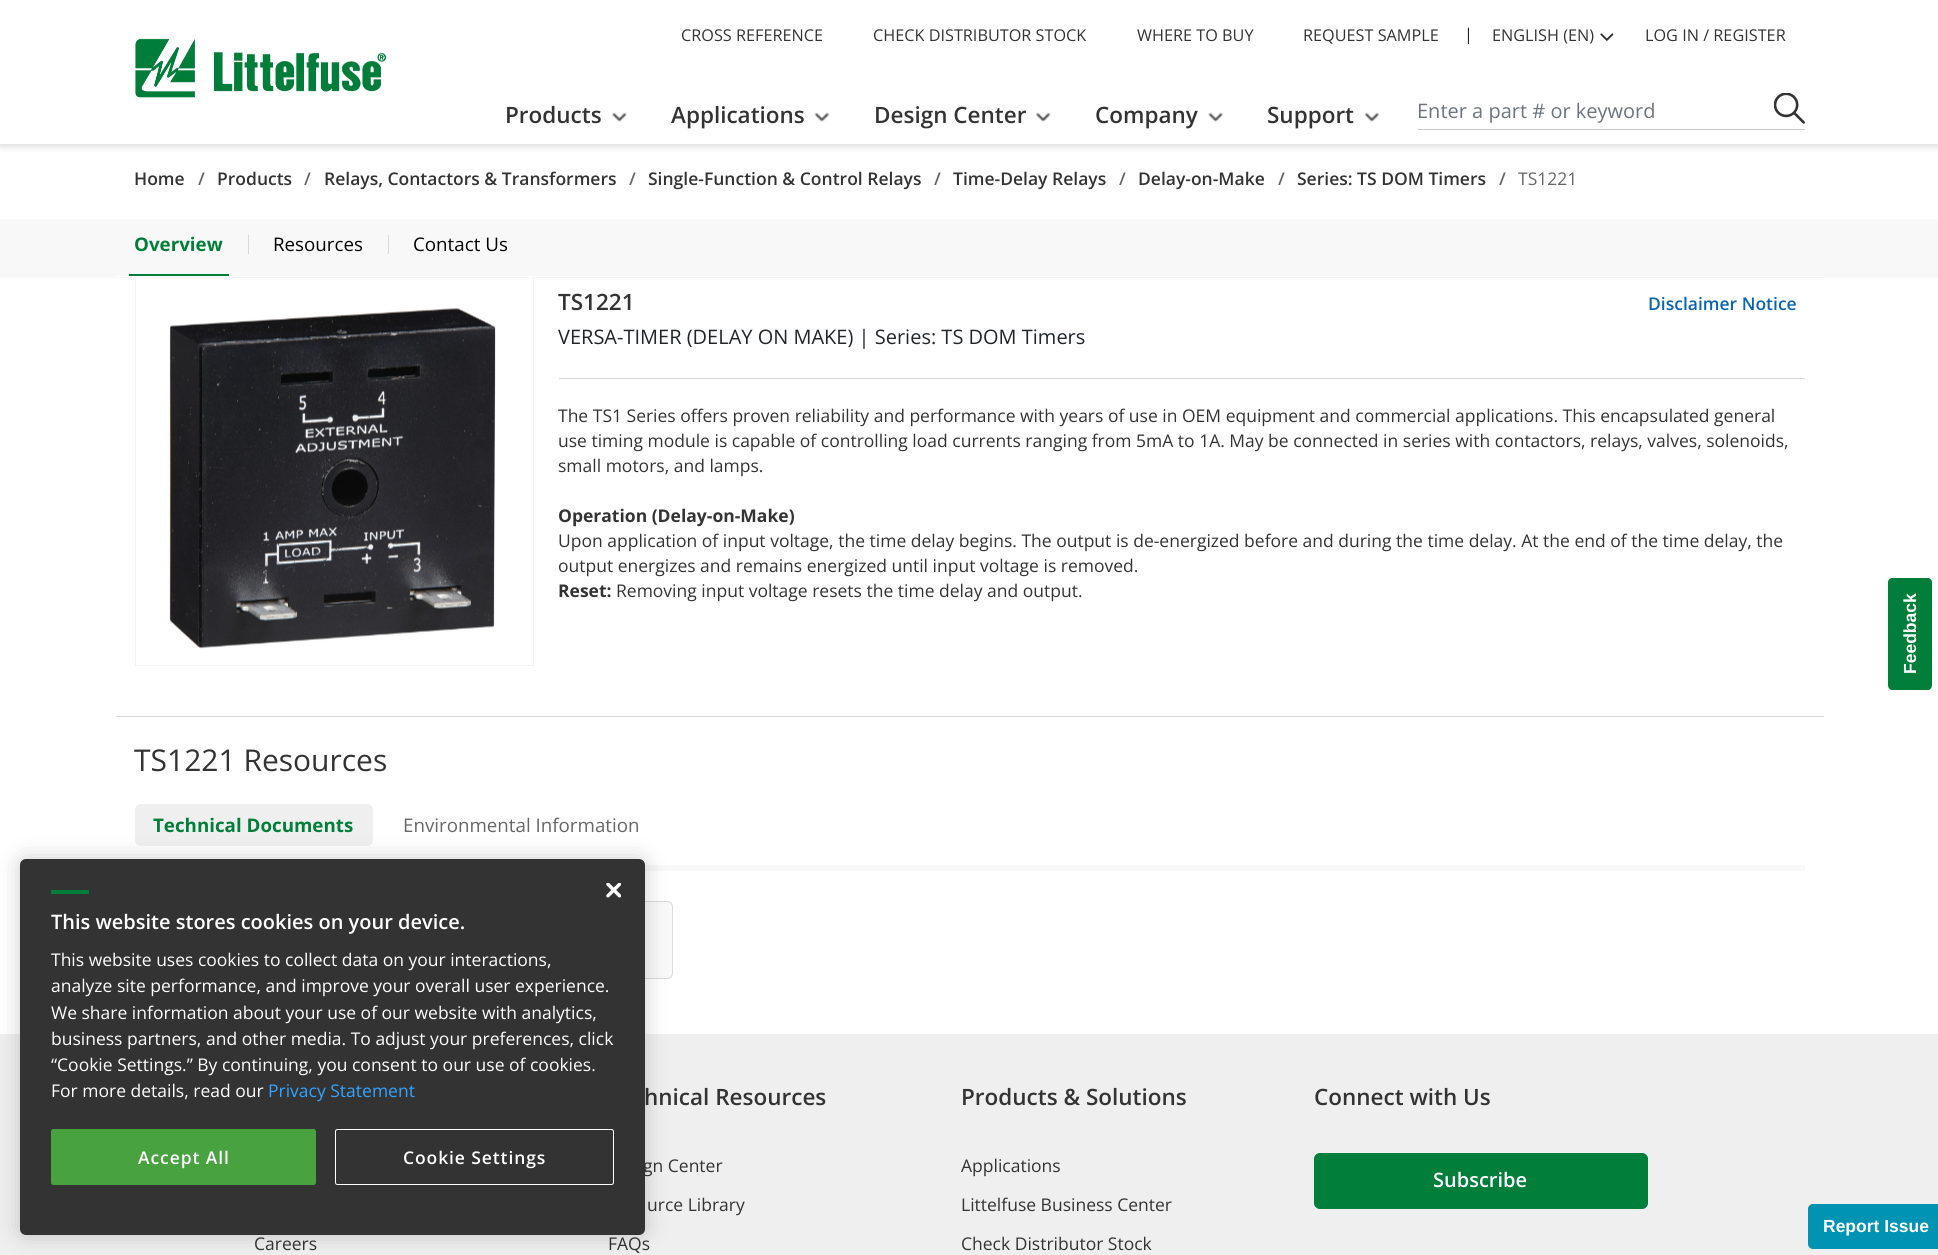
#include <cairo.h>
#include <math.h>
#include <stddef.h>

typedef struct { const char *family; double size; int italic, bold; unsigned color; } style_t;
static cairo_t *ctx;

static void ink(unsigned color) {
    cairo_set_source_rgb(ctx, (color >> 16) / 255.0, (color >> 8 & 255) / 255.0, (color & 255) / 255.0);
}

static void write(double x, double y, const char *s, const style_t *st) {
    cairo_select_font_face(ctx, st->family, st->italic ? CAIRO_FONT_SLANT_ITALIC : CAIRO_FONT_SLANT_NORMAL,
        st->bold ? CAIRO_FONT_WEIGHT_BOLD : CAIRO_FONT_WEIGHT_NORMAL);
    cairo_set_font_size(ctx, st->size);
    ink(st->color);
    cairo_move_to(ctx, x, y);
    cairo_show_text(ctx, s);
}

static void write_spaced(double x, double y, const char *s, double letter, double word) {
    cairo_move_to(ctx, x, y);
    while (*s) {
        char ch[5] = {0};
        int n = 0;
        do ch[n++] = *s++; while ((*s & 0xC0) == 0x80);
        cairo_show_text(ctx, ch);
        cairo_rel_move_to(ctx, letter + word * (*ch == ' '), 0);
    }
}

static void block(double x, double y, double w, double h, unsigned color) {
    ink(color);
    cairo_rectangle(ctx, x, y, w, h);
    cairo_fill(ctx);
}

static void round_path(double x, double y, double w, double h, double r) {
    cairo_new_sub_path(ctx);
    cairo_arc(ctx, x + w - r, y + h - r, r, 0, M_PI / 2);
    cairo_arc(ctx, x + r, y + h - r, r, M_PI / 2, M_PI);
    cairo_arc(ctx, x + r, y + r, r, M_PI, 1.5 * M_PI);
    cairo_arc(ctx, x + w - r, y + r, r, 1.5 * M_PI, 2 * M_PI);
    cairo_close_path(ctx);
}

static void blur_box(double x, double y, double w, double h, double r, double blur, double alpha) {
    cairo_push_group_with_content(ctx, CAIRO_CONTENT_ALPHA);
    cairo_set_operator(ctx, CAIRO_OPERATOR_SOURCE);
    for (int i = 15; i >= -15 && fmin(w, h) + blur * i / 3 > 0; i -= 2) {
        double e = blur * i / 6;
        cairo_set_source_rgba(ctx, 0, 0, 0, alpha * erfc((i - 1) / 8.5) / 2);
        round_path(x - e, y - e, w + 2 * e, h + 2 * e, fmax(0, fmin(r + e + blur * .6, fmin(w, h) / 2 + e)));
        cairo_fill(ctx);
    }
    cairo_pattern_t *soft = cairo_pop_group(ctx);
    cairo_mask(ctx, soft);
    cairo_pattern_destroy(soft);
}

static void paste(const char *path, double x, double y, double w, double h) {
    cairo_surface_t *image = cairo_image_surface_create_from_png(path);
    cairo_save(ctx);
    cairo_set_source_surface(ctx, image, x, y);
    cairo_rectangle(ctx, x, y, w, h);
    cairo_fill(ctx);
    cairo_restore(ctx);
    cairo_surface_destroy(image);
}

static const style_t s1 = {"Open Sans", 16.25, 0, 0, 0x333333};
static const style_t s2 = {"Open Sans", 16.25, 0, 0, 0x212529};
static const style_t s3 = {"Open Sans SemiBold", 22.5, 0, 0, 0x333333};
static const style_t s4 = {"Open Sans", 20, 0, 0, 0x6c757d};
static const style_t s5 = {"Open Sans SemiBold", 17.5, 0, 0, 0x333333};
static const style_t s6 = {"Open Sans SemiBold", 17.5, 0, 0, 0x666666};
static const style_t s7 = {"Open Sans", 17.5, 0, 0, 0x666666};
static const style_t s8 = {"Open Sans", 18.75, 0, 1, 0x007e3a};
static const style_t s9 = {"Open Sans", 18.75, 0, 0, 0x000000};
static const style_t s10 = {"Open Sans", 20, 0, 0, 0x212529};
static const style_t s11 = {"Open Sans SemiBold", 17.5, 0, 0, 0x0965b0};
static const style_t s12 = {"Open Sans", 17.5, 0, 0, 0x333333};
static const style_t s13 = {"Open Sans", 17.5, 0, 1, 0x333333};
static const style_t s14 = {"Open Sans", 30, 0, 0, 0x333333};
static const style_t s15 = {"Open Sans", 18.75, 0, 0, 0x666666};
static const style_t s16 = {"Open Sans SemiBold", 20, 0, 0, 0xffffff};
static const style_t s17 = {"Liberation Sans", 17.5, 0, 1, 0xffffff};
static const style_t s18 = {"Open Sans", 17.5, 0, 0, 0xffffff};
static const style_t s19 = {"Open Sans", 17.5, 0, 0, 0x33a3ff};

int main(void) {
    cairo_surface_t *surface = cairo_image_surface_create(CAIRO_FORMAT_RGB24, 1938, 1255);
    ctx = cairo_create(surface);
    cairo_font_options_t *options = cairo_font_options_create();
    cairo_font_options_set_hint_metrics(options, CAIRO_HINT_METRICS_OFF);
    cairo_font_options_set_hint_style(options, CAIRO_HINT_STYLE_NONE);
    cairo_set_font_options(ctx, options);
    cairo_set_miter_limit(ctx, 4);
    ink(0xffffff);
    cairo_paint(ctx);
    ink(0x000000);
    blur_box(0, 1, 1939, 145, 0, 4, 0.16);
    block(0, 0, 1938, 144, 0xffffff);
    paste("pic1.png", 135, 38, 251, 60);
    write(681, 41, "CROSS REFERENCE", &s1);
    write(873, 41, "CHECK DISTRIBUTOR STOCK", &s1);
    write(1137, 41, "WHERE TO BUY", &s1);
    write(1303, 41, "REQUEST SAMPLE", &s1);
    write(1464, 40, "|", &s2);
    write(1492, 41, "ENGLISH (EN)", &s1);
    paste("pic2.png", 1600, 33, 14, 8);
    write(1645, 41, "LOG IN / REGISTER", &s1);
    write(505, 123, "Products", &s3);
    paste("pic3.png", 612, 112, 15, 10);
    write(671, 123, "Applications", &s3);
    paste("pic4.png", 814, 112, 16, 10);
    write(874, 123, "Design Center", &s3);
    paste("pic5.png", 1036, 112, 15, 10);
    write(1095, 123, "Company", &s3);
    paste("pic6.png", 1208, 112, 16, 10);
    write(1267, 123, "Support", &s3);
    paste("pic7.png", 1364, 112, 15, 10);
    block(1418, 129, 387, 1, 0xcccccc);
    write(1417, 118, "Enter a part # or keyword", &s4);
    paste("pic8.png", 1774, 93, 31, 31);
    write(134, 185, "Home", &s5);
    write(198, 185, "/", &s6);
    write(217, 185, "Products", &s5);
    write(304, 185, "/", &s6);
    write(324, 185, "Relays, Contactors & Transformers", &s5);
    write(629, 185, "/", &s6);
    write(648, 185, "Single-Function & Control Relays", &s5);
    write(934, 185, "/", &s6);
    write(953, 185, "Time-Delay Relays", &s5);
    write(1119, 185, "/", &s6);
    write(1138, 185, "Delay-on-Make", &s5);
    write(1278, 185, "/", &s6);
    write(1297, 185, "Series: TS DOM Timers", &s5);
    write(1499, 185, "/", &s6);
    write(1518, 185, "TS1221", &s7);
    cairo_rectangle(ctx, 135.5, 276.5, 398, 389);
    ink(0xf2f2f2);
    cairo_set_line_width(ctx, 1);
    cairo_stroke(ctx);
    block(0, 219, 1938, 59, 0xf8f8f8);
    block(116, 276, 1708, 1, 0xffffff);
    block(129, 274, 100, 2, 0x007e3a);
    write(134, 251, "Overview", &s8);
    block(248, 235, 1, 19, 0xd9d9d9);
    write(273, 251, "Resources", &s9);
    block(388, 235, 1, 19, 0xd9d9d9);
    write(413, 251, "Contact Us", &s9);
    paste("pic9.png", 169, 308, 327, 341);
    block(559, 378, 1246, 1, 0xd9d9d9);
    write(558, 310, "TS1221", &s3);
    write(558, 344, "VERSA-TIMER (DELAY ON MAKE) | Series: TS DOM Timers", &s10);
    write(1648, 310, "Disclaimer Notice", &s11);
    write(558, 422, "The TS1 Series offers proven reliability and performance with years of use in OEM equipment and commercial applications. This encapsulated general", &s12);
    write(558, 447, "use timing module is capable of controlling load currents ranging from 5mA to 1A. May be connected in series with contactors, relays, valves, solenoids,", &s12);
    write(558, 472, "small motors, and lamps.", &s12);
    write(558, 522, "Operation (Delay-on-Make)", &s13);
    write(558, 547, "Upon application of input voltage, the time delay begins. The output is de-energized before and during the time delay. At the end of the time delay, the", &s12);
    write(558, 572, "output energizes and remains energized until input voltage is removed.", &s12);
    write(558, 597, "Reset:", &s13);
    write(616, 597, "Removing input voltage resets the time delay and output.", &s12);
    block(116, 716, 1708, 1, 0xd9d9d9);
    write(134, 771, "TS1221 Resources", &s14);
    block(645, 865, 1160, 6, 0xf8f8f8);
    ink(0xefefef);
    round_path(135, 804, 238, 42, 6);
    cairo_fill(ctx);
    write(153, 832, "Technical Documents", &s8);
    write(403, 832, "Environmental Information", &s15);
    ink(0xf9f9f9);
    round_path(135.5, 901.5, 537, 77, 5.5);
    cairo_fill_preserve(ctx);
    ink(0xd9d9d9);
    cairo_stroke(ctx);
    block(0, 1034, 1938, 221, 0xefefef);
    write(644, 1105, "hnical Resources", &s3);
    write(643, 1172, "gn Center", &s12);
    write(647, 1211, "urce Library", &s12);
    write(608, 1250, "FAQs", &s12);
    write(961, 1105, "Products & Solutions", &s3);
    write(961, 1172, "Applications", &s12);
    write(961, 1211, "Littelfuse Business Center", &s12);
    write(961, 1250, "Check Distributor Stock", &s12);
    write(1314, 1105, "Connect with Us", &s3);
    ink(0x007e3a);
    round_path(1314.5, 1153.5, 333, 55, 5.5);
    cairo_fill_preserve(ctx);
    cairo_stroke(ctx);
    write(1433, 1187, "Subscribe", &s16);
    write(254, 1250, "Careers", &s12);
    ink(0x007e3a);
    cairo_new_path(ctx);
    cairo_move_to(ctx, 1888, 685);
    cairo_line_to(ctx, 1888, 582);
    cairo_curve_to(ctx, 1888, 580, 1890, 578, 1892, 578);
    cairo_line_to(ctx, 1928, 578);
    cairo_curve_to(ctx, 1930, 578, 1932, 580, 1932, 582);
    cairo_line_to(ctx, 1932, 685);
    cairo_curve_to(ctx, 1932, 688, 1930, 690, 1928, 690);
    cairo_line_to(ctx, 1892, 690);
    cairo_curve_to(ctx, 1890, 690, 1888, 688, 1888, 685);
    cairo_close_path(ctx);
    cairo_fill(ctx);
    cairo_save(ctx);
    cairo_translate(ctx, 1916, 674);
    cairo_rotate(ctx, -90 * M_PI / 180);
    write(0, 0, "Feedback", &s17);
    cairo_restore(ctx);
    ink(0x000000);
    blur_box(20, 859, 625, 376, 6, 11, 0.2);
    ink(0x333333);
    round_path(20, 859, 625, 376, 6);
    cairo_fill(ctx);
    paste("pic10.png", 606, 883, 15, 15);
    block(51, 890, 38, 4, 0x007e3a);
    write(51, 929, "This website stores cookies on your device.", &s16);
    write(51, 966, "This website uses cookies to collect data on your interactions,", &s18);
    write(51, 992, "analyze site performance, and improve your overall user experience.", &s18);
    write(51, 1019, "We share information about your use of our website with analytics,", &s18);
    write(51, 1045, "business partners, and other media. To adjust your preferences, click", &s18);
    write(51, 1071, "“Cookie Settings.” By continuing, you consent to our use of cookies.", &s18);
    write(51, 1097, "For more details, read our", &s18);
    write(268, 1097, "Privacy Statement", &s19);
    ink(0x48a23f);
    round_path(51.5, 1129.5, 264, 55, 2);
    cairo_fill_preserve(ctx);
    cairo_stroke(ctx);
    cairo_select_font_face(ctx, "Open Sans SemiBold", CAIRO_FONT_SLANT_NORMAL, CAIRO_FONT_WEIGHT_NORMAL);
    ink(0xffffff);
    write_spaced(138, 1164, "Accept All", 0.9, 0);
    round_path(335.5, 1129.5, 278, 55, 2);
    cairo_stroke(ctx);
    write_spaced(403, 1164, "Cookie Settings", 0.9, 0);
    ink(0x0093b2);
    round_path(1808, 1204, 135, 45, 5);
    cairo_fill(ctx);
    write(1823, 1232, "Report Issue", &s17);
    cairo_surface_write_to_png(surface, "screenshot.png");
    cairo_font_options_destroy(options);
    cairo_destroy(ctx);
    cairo_surface_destroy(surface);
    return 0;
}
